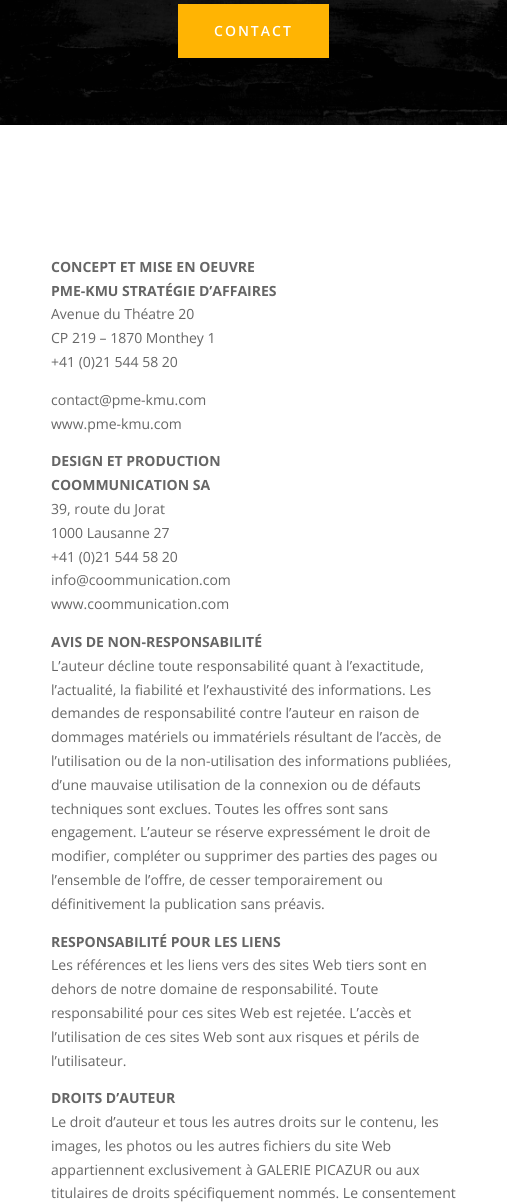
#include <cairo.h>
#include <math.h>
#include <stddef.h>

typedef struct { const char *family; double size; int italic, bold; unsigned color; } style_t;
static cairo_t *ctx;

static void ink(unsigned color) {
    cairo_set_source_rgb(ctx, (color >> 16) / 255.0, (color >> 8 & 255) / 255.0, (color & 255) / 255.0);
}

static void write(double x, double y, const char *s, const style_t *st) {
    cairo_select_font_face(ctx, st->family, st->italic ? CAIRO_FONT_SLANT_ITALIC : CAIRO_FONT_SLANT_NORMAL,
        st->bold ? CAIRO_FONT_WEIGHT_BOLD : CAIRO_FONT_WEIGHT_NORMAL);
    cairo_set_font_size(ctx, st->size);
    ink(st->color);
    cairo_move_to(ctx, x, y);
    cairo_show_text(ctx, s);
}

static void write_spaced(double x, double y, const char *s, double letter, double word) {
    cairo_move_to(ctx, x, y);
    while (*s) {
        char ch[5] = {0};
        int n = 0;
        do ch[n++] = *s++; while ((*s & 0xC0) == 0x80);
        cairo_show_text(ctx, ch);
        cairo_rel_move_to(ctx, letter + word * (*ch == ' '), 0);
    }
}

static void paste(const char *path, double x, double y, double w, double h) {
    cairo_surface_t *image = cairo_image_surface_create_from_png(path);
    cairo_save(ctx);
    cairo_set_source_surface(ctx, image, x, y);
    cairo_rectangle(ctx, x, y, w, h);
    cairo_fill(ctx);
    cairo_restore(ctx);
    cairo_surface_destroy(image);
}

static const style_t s1 = {"Open Sans", 14, 0, 1, 0x666666};
static const style_t s2 = {"Open Sans", 14, 0, 0, 0x666666};

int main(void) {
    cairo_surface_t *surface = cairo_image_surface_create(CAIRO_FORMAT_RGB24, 507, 1202);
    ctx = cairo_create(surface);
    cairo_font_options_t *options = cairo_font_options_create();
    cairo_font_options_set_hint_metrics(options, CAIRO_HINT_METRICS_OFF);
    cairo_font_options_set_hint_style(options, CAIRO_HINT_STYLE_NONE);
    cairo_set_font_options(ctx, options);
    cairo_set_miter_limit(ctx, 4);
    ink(0xffffff);
    cairo_paint(ctx);
    paste("pic1.png", 0, 0, 507, 125);
    ink(0xffb403);
    cairo_rectangle(ctx, 178.5, 4.5, 150, 53);
    cairo_fill_preserve(ctx);
    ink(0xfeb406);
    cairo_set_line_width(ctx, 1);
    cairo_stroke(ctx);
    cairo_select_font_face(ctx, "Open Sans SemiBold", CAIRO_FONT_SLANT_NORMAL, CAIRO_FONT_WEIGHT_NORMAL);
    cairo_set_font_size(ctx, 14);
    ink(0xffffff);
    write_spaced(214, 36, "CONTACT", 2, 0);
    write(51, 272, "CONCEPT ET MISE EN OEUVRE", &s1);
    write(51, 296, "PME-KMU STRATÉGIE D’AFFAIRES", &s1);
    write(51, 319, "Avenue du Théatre 20", &s2);
    write(51, 343, "CP 219 – 1870 Monthey 1", &s2);
    write(51, 367, "+41 (0)21 544 58 20", &s2);
    write(51, 405, "contact@pme-kmu.com", &s2);
    write(51, 429, "www.pme-kmu.com", &s2);
    write(51, 466, "DESIGN ET PRODUCTION", &s1);
    write(51, 490, "COOMMUNICATION SA", &s1);
    write(51, 514, "39, route du Jorat", &s2);
    write(51, 538, "1000 Lausanne 27", &s2);
    write(51, 562, "+41 (0)21 544 58 20", &s2);
    write(51, 585, "info@coommunication.com", &s2);
    write(51, 609, "www.coommunication.com", &s2);
    write(51, 647, "AVIS DE NON-RESPONSABILITÉ", &s1);
    write(51, 671, "L’auteur décline toute responsabilité quant à l’exactitude,", &s2);
    write(51, 695, "l’actualité, la fiabilité et l’exhaustivité des informations. Les", &s2);
    write(51, 718, "demandes de responsabilité contre l’auteur en raison de", &s2);
    write(51, 742, "dommages matériels ou immatériels résultant de l’accès, de", &s2);
    write(51, 766, "l’utilisation ou de la non-utilisation des informations publiées,", &s2);
    write(51, 790, "d’une mauvaise utilisation de la connexion ou de défauts", &s2);
    write(51, 814, "techniques sont exclues. Toutes les offres sont sans", &s2);
    write(51, 837, "engagement. L’auteur se réserve expressément le droit de", &s2);
    write(51, 861, "modifier, compléter ou supprimer des parties des pages ou", &s2);
    write(51, 885, "l’ensemble de l’offre, de cesser temporairement ou", &s2);
    write(51, 909, "définitivement la publication sans préavis.", &s2);
    write(51, 947, "RESPONSABILITÉ POUR LES LIENS", &s1);
    write(51, 970, "Les références et les liens vers des sites Web tiers sont en", &s2);
    write(51, 994, "dehors de notre domaine de responsabilité. Toute", &s2);
    write(51, 1018, "responsabilité pour ces sites Web est rejetée. L’accès et", &s2);
    write(51, 1042, "l’utilisation de ces sites Web sont aux risques et périls de", &s2);
    write(51, 1066, "l’utilisateur.", &s2);
    write(51, 1103, "DROITS D’AUTEUR", &s1);
    write(51, 1127, "Le droit d’auteur et tous les autres droits sur le contenu, les", &s2);
    write(51, 1151, "images, les photos ou les autres fichiers du site Web", &s2);
    write(51, 1175, "appartiennent exclusivement à GALERIE PICAZUR ou aux", &s2);
    write(51, 1198, "titulaires de droits spécifiquement nommés. Le consentement", &s2);
    cairo_surface_write_to_png(surface, "screenshot.png");
    cairo_font_options_destroy(options);
    cairo_destroy(ctx);
    cairo_surface_destroy(surface);
    return 0;
}
